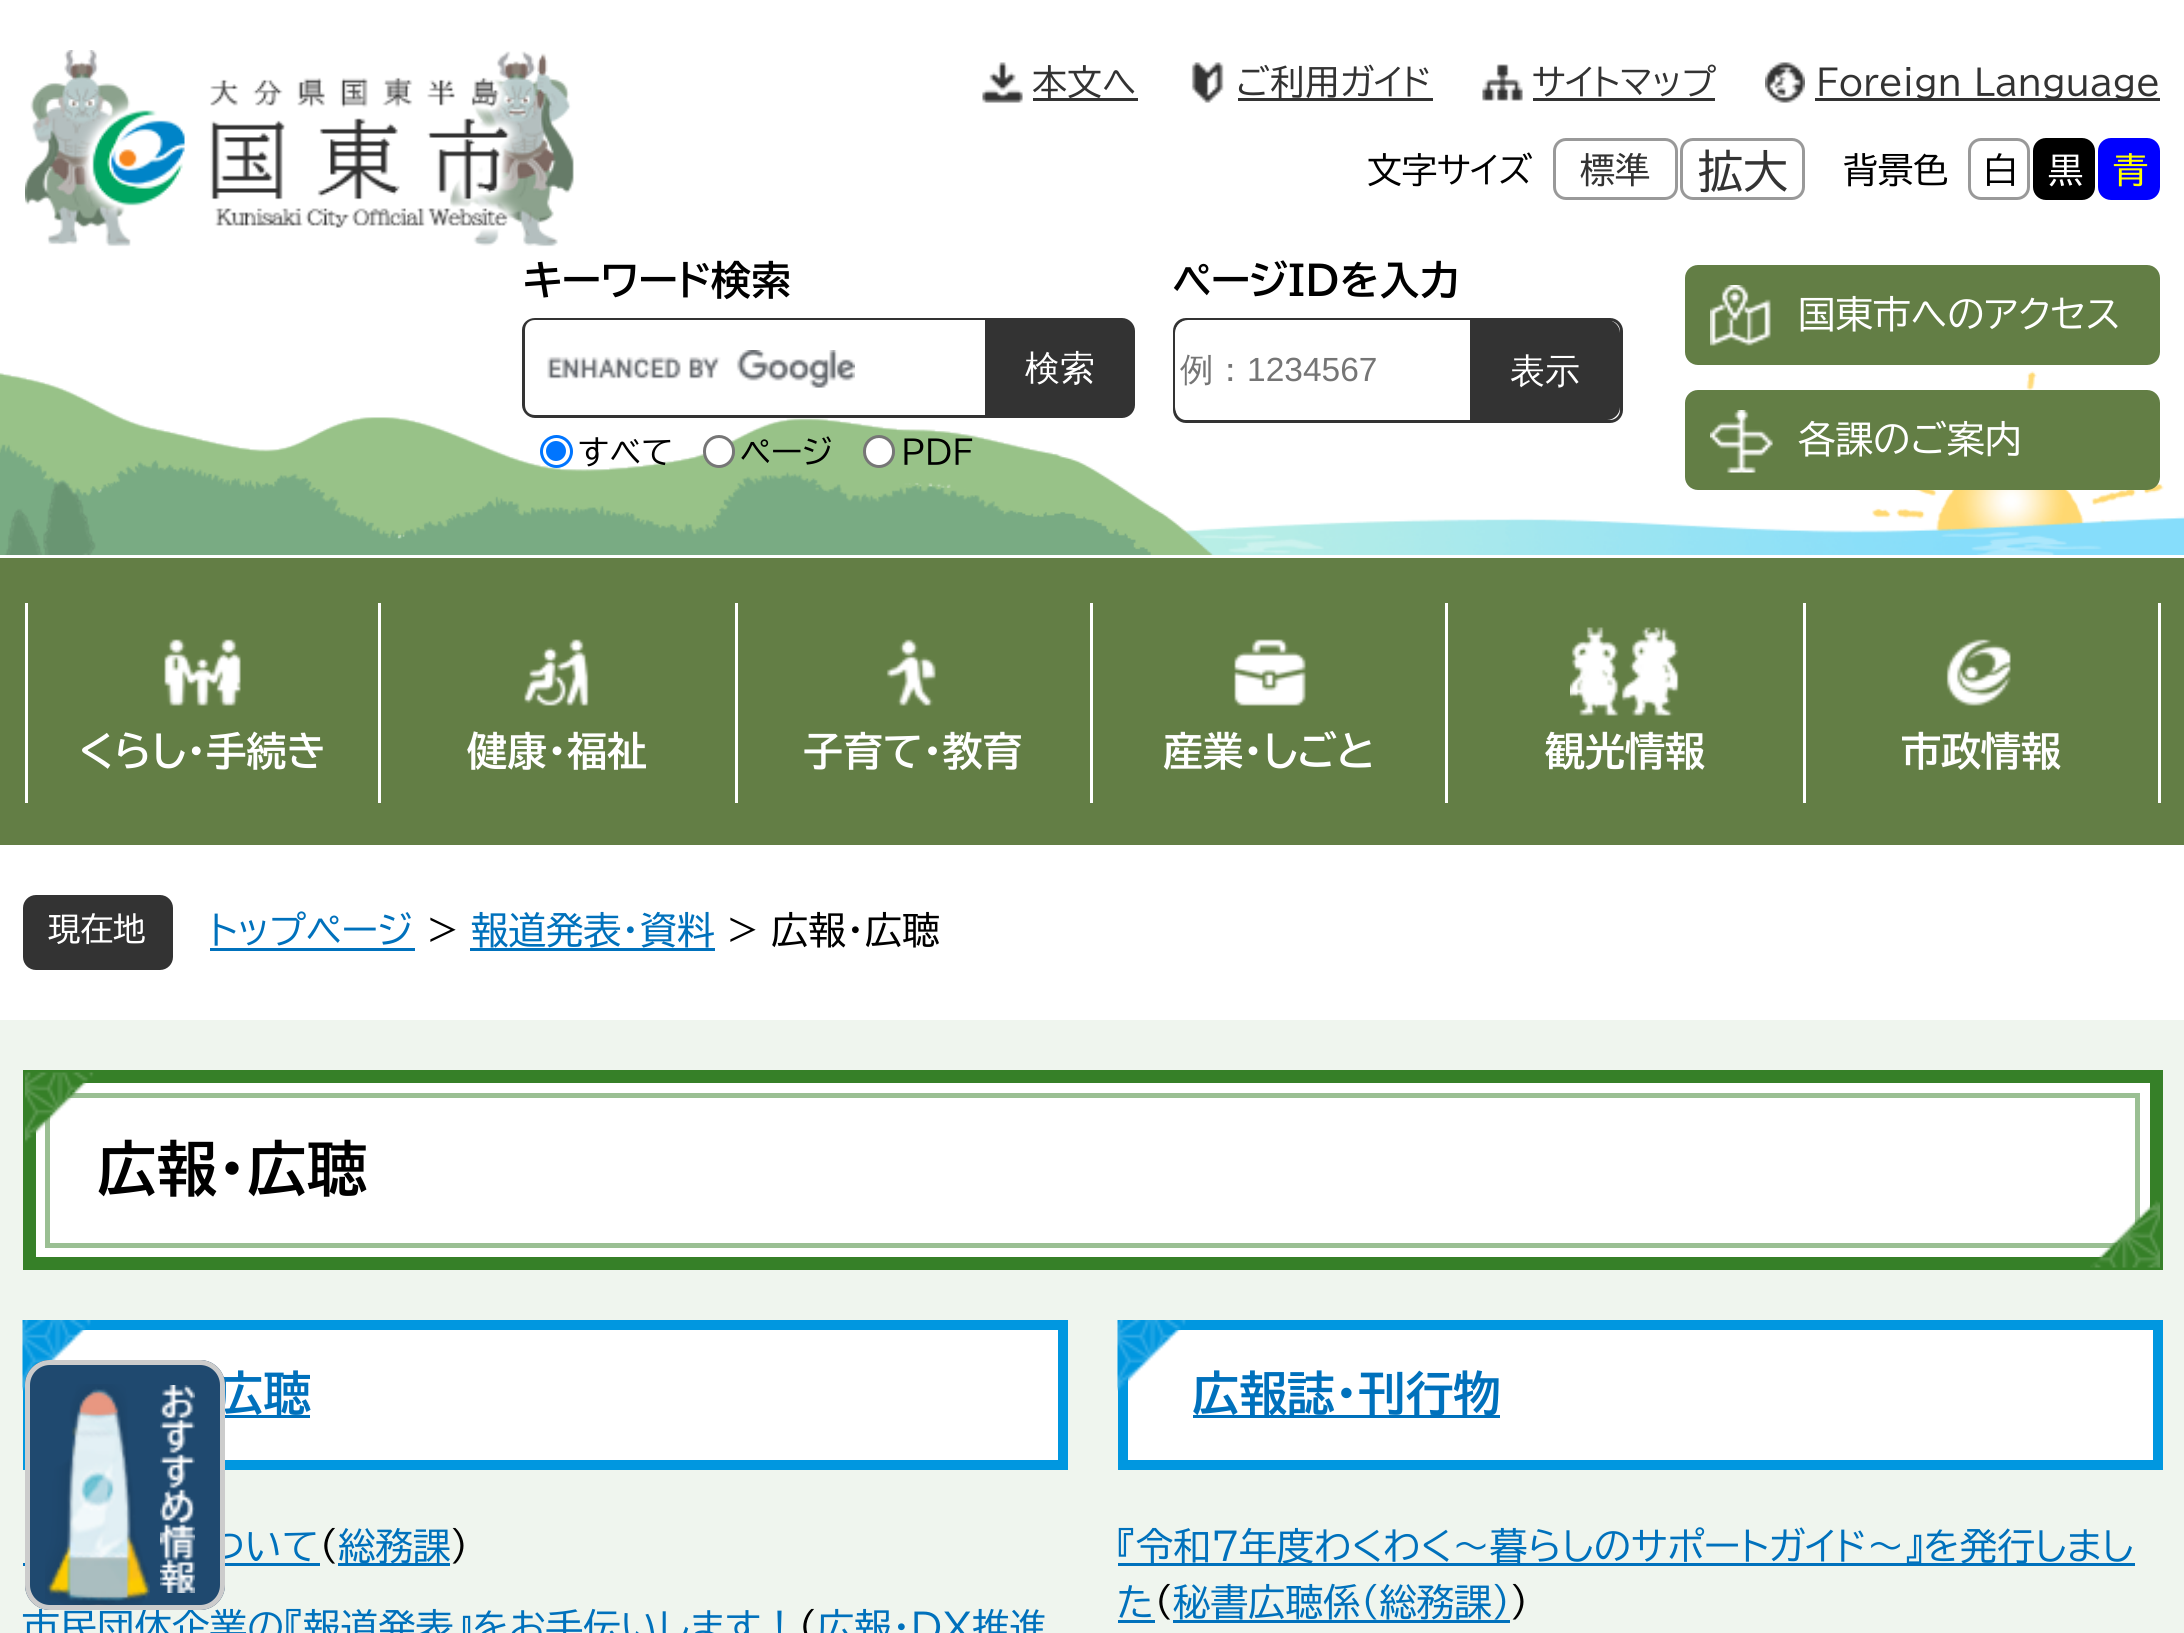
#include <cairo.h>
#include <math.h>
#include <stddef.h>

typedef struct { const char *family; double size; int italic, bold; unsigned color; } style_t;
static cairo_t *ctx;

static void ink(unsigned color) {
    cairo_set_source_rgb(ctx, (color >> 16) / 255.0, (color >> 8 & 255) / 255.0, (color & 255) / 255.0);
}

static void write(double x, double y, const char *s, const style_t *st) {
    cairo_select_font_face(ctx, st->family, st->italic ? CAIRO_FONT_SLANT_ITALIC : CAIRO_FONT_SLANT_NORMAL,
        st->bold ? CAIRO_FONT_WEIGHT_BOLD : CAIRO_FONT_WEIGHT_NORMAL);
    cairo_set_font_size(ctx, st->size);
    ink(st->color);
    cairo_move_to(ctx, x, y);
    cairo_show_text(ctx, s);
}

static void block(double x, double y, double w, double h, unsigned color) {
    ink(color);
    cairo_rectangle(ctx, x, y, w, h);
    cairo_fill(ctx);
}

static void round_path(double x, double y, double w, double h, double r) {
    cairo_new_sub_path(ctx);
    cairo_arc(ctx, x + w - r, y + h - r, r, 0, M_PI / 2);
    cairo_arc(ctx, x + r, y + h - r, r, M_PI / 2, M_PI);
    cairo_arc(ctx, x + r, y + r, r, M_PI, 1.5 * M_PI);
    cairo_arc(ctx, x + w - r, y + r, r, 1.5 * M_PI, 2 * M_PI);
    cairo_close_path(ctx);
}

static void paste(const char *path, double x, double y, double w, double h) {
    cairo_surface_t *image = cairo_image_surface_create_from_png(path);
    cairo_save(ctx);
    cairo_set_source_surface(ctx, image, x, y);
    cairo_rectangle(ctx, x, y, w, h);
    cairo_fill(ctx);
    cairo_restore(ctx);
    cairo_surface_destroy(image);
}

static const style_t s1 = {"BIZ UDPGothic", 35, 0, 0, 0x333333};
static const style_t s2 = {"BIZ UDPGothic", 35, 0, 0, 0x000000};
static const style_t s3 = {"BIZ UDPGothic", 45, 0, 0, 0x333333};
static const style_t s4 = {"BIZ UDPGothic", 35, 0, 0, 0xffffff};
static const style_t s5 = {"BIZ UDPGothic", 35, 0, 0, 0xffff00};
static const style_t s6 = {"BIZ UDPGothic", 40, 0, 1, 0x000000};
static const style_t s7 = {"WenQuanYi Zen Hei Medium", 35, 0, 0, 0xffffff};
static const style_t s8 = {"BIZ UDPGothic", 32.5, 0, 0, 0x000000};
static const style_t s9 = {"WenQuanYi Zen Hei Medium", 33.5, 0, 0, 0x757575};
static const style_t s10 = {"Liberation Sans", 33.5, 0, 0, 0x757575};
static const style_t s11 = {"BIZ UDPGothic", 37.5, 0, 0, 0xffffff};
static const style_t s12 = {"BIZ UDPGothic", 40, 0, 1, 0xffffff};
static const style_t s13 = {"BIZ UDPGothic", 32.5, 0, 0, 0xffffff};
static const style_t s14 = {"BIZ UDPGothic", 37.5, 0, 0, 0x0071bc};
static const style_t s15 = {"BIZ UDPGothic", 37.5, 0, 0, 0x000000};
static const style_t s16 = {"BIZ UDPGothic", 60, 0, 1, 0x000000};
static const style_t s17 = {"BIZ UDPGothic", 47.5, 0, 1, 0x0071bc};

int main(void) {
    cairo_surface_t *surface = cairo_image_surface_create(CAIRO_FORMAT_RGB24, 2184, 1633);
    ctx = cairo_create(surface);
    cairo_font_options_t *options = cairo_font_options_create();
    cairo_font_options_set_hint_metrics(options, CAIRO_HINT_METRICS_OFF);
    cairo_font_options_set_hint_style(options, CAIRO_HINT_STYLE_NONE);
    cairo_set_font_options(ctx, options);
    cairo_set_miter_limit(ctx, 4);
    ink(0xeff5ee);
    cairo_paint(ctx);
    block(0, 0, 2184, 558, 0xffffff);
    paste("pic1.png", 0, 371, 2184, 184);
    paste("pic2.png", 25, 50, 549, 197);
    paste("pic3.png", 76, 70, 446, 171);
    paste("pic4.png", 982, 62, 41, 41);
    block(1033, 98, 105, 3, 0x333333);
    write(1032, 95, "本文へ", &s1);
    paste("pic5.png", 1191, 62, 33, 41);
    block(1238, 98, 195, 3, 0x333333);
    write(1236, 95, "ご利用ガイド", &s1);
    paste("pic6.png", 1482, 64, 41, 37);
    write(1532, 95, "サイトマップ", &s1);
    block(1533, 98, 182, 3, 0x333333);
    paste("pic7.png", 1765, 62, 40, 41);
    block(1815, 98, 345, 3, 0x333333);
    write(1816, 95, "Foreign Language", &s1);
    write(1367, 183, "文字サイズ", &s2);
    round_path(1554.5, 139.5, 122, 59, 11.5);
    ink(0x999999);
    cairo_set_line_width(ctx, 3);
    cairo_stroke(ctx);
    write(1580, 183, "標準", &s1);
    round_path(1681.5, 139.5, 122, 59, 11.5);
    ink(0x999999);
    cairo_stroke(ctx);
    write(1698, 188, "拡大", &s3);
    write(1843, 183, "背景色", &s2);
    round_path(1969.5, 139.5, 59, 59, 11.5);
    ink(0x999999);
    cairo_stroke(ctx);
    write(1983, 183, "白", &s2);
    round_path(2034.5, 139.5, 59, 59, 11.5);
    cairo_fill_preserve(ctx);
    cairo_stroke(ctx);
    write(2048, 183, "黒", &s4);
    ink(0x0000ff);
    round_path(2099.5, 139.5, 59, 59, 11.5);
    cairo_fill_preserve(ctx);
    cairo_stroke(ctx);
    write(2113, 183, "青", &s5);
    write(523, 295, "キーワード検索", &s6);
    paste("pic8.png", 547, 350, 308, 38);
    ink(0x333333);
    cairo_set_fill_rule(ctx, CAIRO_FILL_RULE_EVEN_ODD);
    cairo_new_path(ctx);
    cairo_move_to(ctx, 535, 318);
    cairo_line_to(ctx, 985, 318);
    cairo_line_to(ctx, 985, 418);
    cairo_line_to(ctx, 535, 418);
    cairo_curve_to(ctx, 528, 418, 522, 412, 522, 405);
    cairo_line_to(ctx, 522, 330);
    cairo_curve_to(ctx, 522, 323, 528, 318, 535, 318);
    cairo_close_path(ctx);
    cairo_move_to(ctx, 535, 320);
    cairo_line_to(ctx, 985, 320);
    cairo_line_to(ctx, 985, 415);
    cairo_line_to(ctx, 535, 415);
    cairo_curve_to(ctx, 529, 415, 525, 411, 525, 405);
    cairo_line_to(ctx, 525, 330);
    cairo_curve_to(ctx, 525, 324, 529, 320, 535, 320);
    cairo_close_path(ctx);
    cairo_fill(ctx);
    cairo_new_path(ctx);
    cairo_move_to(ctx, 985, 318);
    cairo_line_to(ctx, 1122, 318);
    cairo_curve_to(ctx, 1129, 318, 1135, 324, 1135, 331);
    cairo_line_to(ctx, 1135, 405);
    cairo_curve_to(ctx, 1135, 412, 1129, 418, 1122, 418);
    cairo_line_to(ctx, 985, 418);
    cairo_close_path(ctx);
    cairo_fill(ctx);
    write(1025, 380, "検索", &s7);
    cairo_new_path(ctx);
    cairo_arc(ctx, 556.5, 451.5, 15, 0, 2 * M_PI);
    cairo_fill_preserve(ctx);
    ink(0x0075ff);
    cairo_stroke(ctx);
    cairo_arc(ctx, 556, 451, 10, 0, 2 * M_PI);
    cairo_fill(ctx);
    write(578, 464, "すべて", &s8);
    ink(0xffffff);
    round_path(704.5, 436.5, 29, 30, 14.5);
    cairo_fill_preserve(ctx);
    ink(0x767676);
    cairo_stroke(ctx);
    write(740, 464, "ページ", &s8);
    ink(0xffffff);
    round_path(864.5, 436.5, 29, 30, 14.5);
    cairo_fill_preserve(ctx);
    ink(0x767676);
    cairo_stroke(ctx);
    write(901, 464, "PDF", &s8);
    write(1173, 295, "ページIDを入力", &s6);
    round_path(1174.5, 319.5, 447, 102, 11.5);
    ink(0x333333);
    cairo_stroke(ctx);
    ink(0xffffff);
    cairo_new_path(ctx);
    cairo_move_to(ctx, 1188, 320);
    cairo_line_to(ctx, 1470, 320);
    cairo_line_to(ctx, 1470, 420);
    cairo_line_to(ctx, 1188, 420);
    cairo_curve_to(ctx, 1181, 420, 1175, 414, 1175, 407);
    cairo_line_to(ctx, 1175, 333);
    cairo_curve_to(ctx, 1175, 326, 1181, 320, 1188, 320);
    cairo_close_path(ctx);
    cairo_fill(ctx);
    write(1180, 381, "例：", &s9);
    write(1247, 381, "1234567", &s10);
    ink(0x333333);
    cairo_new_path(ctx);
    cairo_move_to(ctx, 1470, 320);
    cairo_line_to(ctx, 1607, 320);
    cairo_curve_to(ctx, 1614, 320, 1620, 326, 1620, 333);
    cairo_line_to(ctx, 1620, 407);
    cairo_curve_to(ctx, 1620, 414, 1614, 420, 1607, 420);
    cairo_line_to(ctx, 1470, 420);
    cairo_close_path(ctx);
    cairo_fill(ctx);
    write(1510, 383, "表示", &s7);
    ink(0x637e45);
    round_path(1685, 265, 475, 100, 13);
    cairo_fill(ctx);
    paste("pic9.png", 1710, 285, 61, 61);
    write(1798, 328, "国東市へのアクセス", &s11);
    ink(0x637e45);
    round_path(1685, 390, 475, 100, 13);
    cairo_fill(ctx);
    paste("pic10.png", 1710, 410, 63, 63);
    write(1798, 453, "各課のご案内", &s11);
    block(0, 558, 2184, 287, 0x637e45);
    block(378, 603, 3, 200, 0xffffff);
    block(25, 603, 3, 200, 0xffffff);
    paste("pic11.png", 164, 639, 77, 67);
    write(79, 766, "くらし・手続き", &s12);
    block(735, 603, 3, 200, 0xffffff);
    paste("pic12.png", 524, 639, 65, 67);
    write(467, 766, "健康・福祉", &s12);
    block(1090, 603, 3, 200, 0xffffff);
    paste("pic13.png", 886, 639, 50, 67);
    write(803, 766, "子育て・教育", &s12);
    block(1445, 603, 3, 200, 0xffffff);
    paste("pic14.png", 1234, 639, 72, 67);
    write(1163, 766, "産業・しごと", &s12);
    block(1803, 603, 3, 200, 0xffffff);
    paste("pic15.png", 1570, 627, 109, 89);
    write(1545, 766, "観光情報", &s12);
    block(2158, 603, 3, 200, 0xffffff);
    paste("pic16.png", 1946, 639, 65, 67);
    write(1901, 766, "市政情報", &s12);
    block(0, 845, 2184, 175, 0xffffff);
    ink(0x333333);
    round_path(23, 895, 150, 75, 13);
    cairo_fill(ctx);
    write(48, 941, "現在地", &s13);
    write(209, 944, "トップページ", &s14);
    block(210, 948, 205, 3, 0x0071bc);
    write(427, 944, ">", &s15);
    write(471, 944, "報道発表・資料", &s14);
    block(470, 948, 245, 3, 0x0071bc);
    write(727, 944, "> 広報・広聴", &s15);
    ink(0xffffff);
    cairo_rectangle(ctx, 29.5, 1076.5, 2127, 187);
    cairo_fill_preserve(ctx);
    ink(0x368028);
    cairo_set_line_width(ctx, 13);
    cairo_stroke(ctx);
    cairo_rectangle(ctx, 47.5, 1095.5, 2090, 150);
    ink(0x9abf93);
    cairo_set_line_width(ctx, 5);
    cairo_stroke(ctx);
    paste("pic17.png", 25, 1072, 69, 71);
    write(97, 1191, "広報・広聴", &s16);
    paste("pic18.png", 2090, 1200, 70, 68);
    block(49, 1330, 1009, 130, 0xffffff);
    cairo_rectangle(ctx, 28, 1325, 1035, 140);
    ink(0x0097e0);
    cairo_set_line_width(ctx, 10);
    cairo_stroke(ctx);
    paste("pic19.png", 22, 1320, 69, 71);
    block(225, 1415, 85, 3, 0x0071bc);
    write(216, 1411, "広聴", &s17);
    write(208, 1560, "ついて", &s14);
    block(23, 1563, 297, 3, 0x0071bc);
    write(319, 1560, "（", &s15);
    block(338, 1563, 112, 3, 0x0071bc);
    write(338, 1560, "総務課", &s14);
    write(450, 1560, "）", &s15);
    write(22, 1641, "市民団体企業の『報道発表』をお手伝いします！", &s14);
    write(798, 1641, "（", &s15);
    write(817, 1641, "広報・DX推進", &s14);
    ink(0xffffff);
    cairo_rectangle(ctx, 1123, 1325, 1035, 140);
    cairo_fill_preserve(ctx);
    ink(0x0097e0);
    cairo_stroke(ctx);
    paste("pic20.png", 1117, 1320, 69, 71);
    block(1193, 1415, 307, 3, 0x0071bc);
    write(1192, 1411, "広報誌・刊行物", &s17);
    block(1118, 1563, 1017, 3, 0x0071bc);
    write(1117, 1560, "『令和7年度わくわく～暮らしのサポートガイド～』を発行しまし", &s14);
    write(1117, 1616, "た", &s14);
    block(1118, 1620, 37, 3, 0x0071bc);
    write(1154, 1616, "（", &s15);
    write(1173, 1616, "秘書広聴係（総務課）", &s14);
    block(1173, 1620, 337, 3, 0x0071bc);
    write(1510, 1616, "）", &s15);
    ink(0x1f496f);
    round_path(25, 1360, 200, 250, 25);
    cairo_fill(ctx);
    paste("pic21.png", 45, 1384, 105, 221);
    round_path(27.5, 1362.5, 195, 245, 22.5);
    ink(0xcccccc);
    cairo_set_line_width(ctx, 5);
    cairo_stroke(ctx);
    paste("pic22.png", 160, 1385, 35, 208);
    cairo_surface_write_to_png(surface, "screenshot.png");
    cairo_font_options_destroy(options);
    cairo_destroy(ctx);
    cairo_surface_destroy(surface);
    return 0;
}
